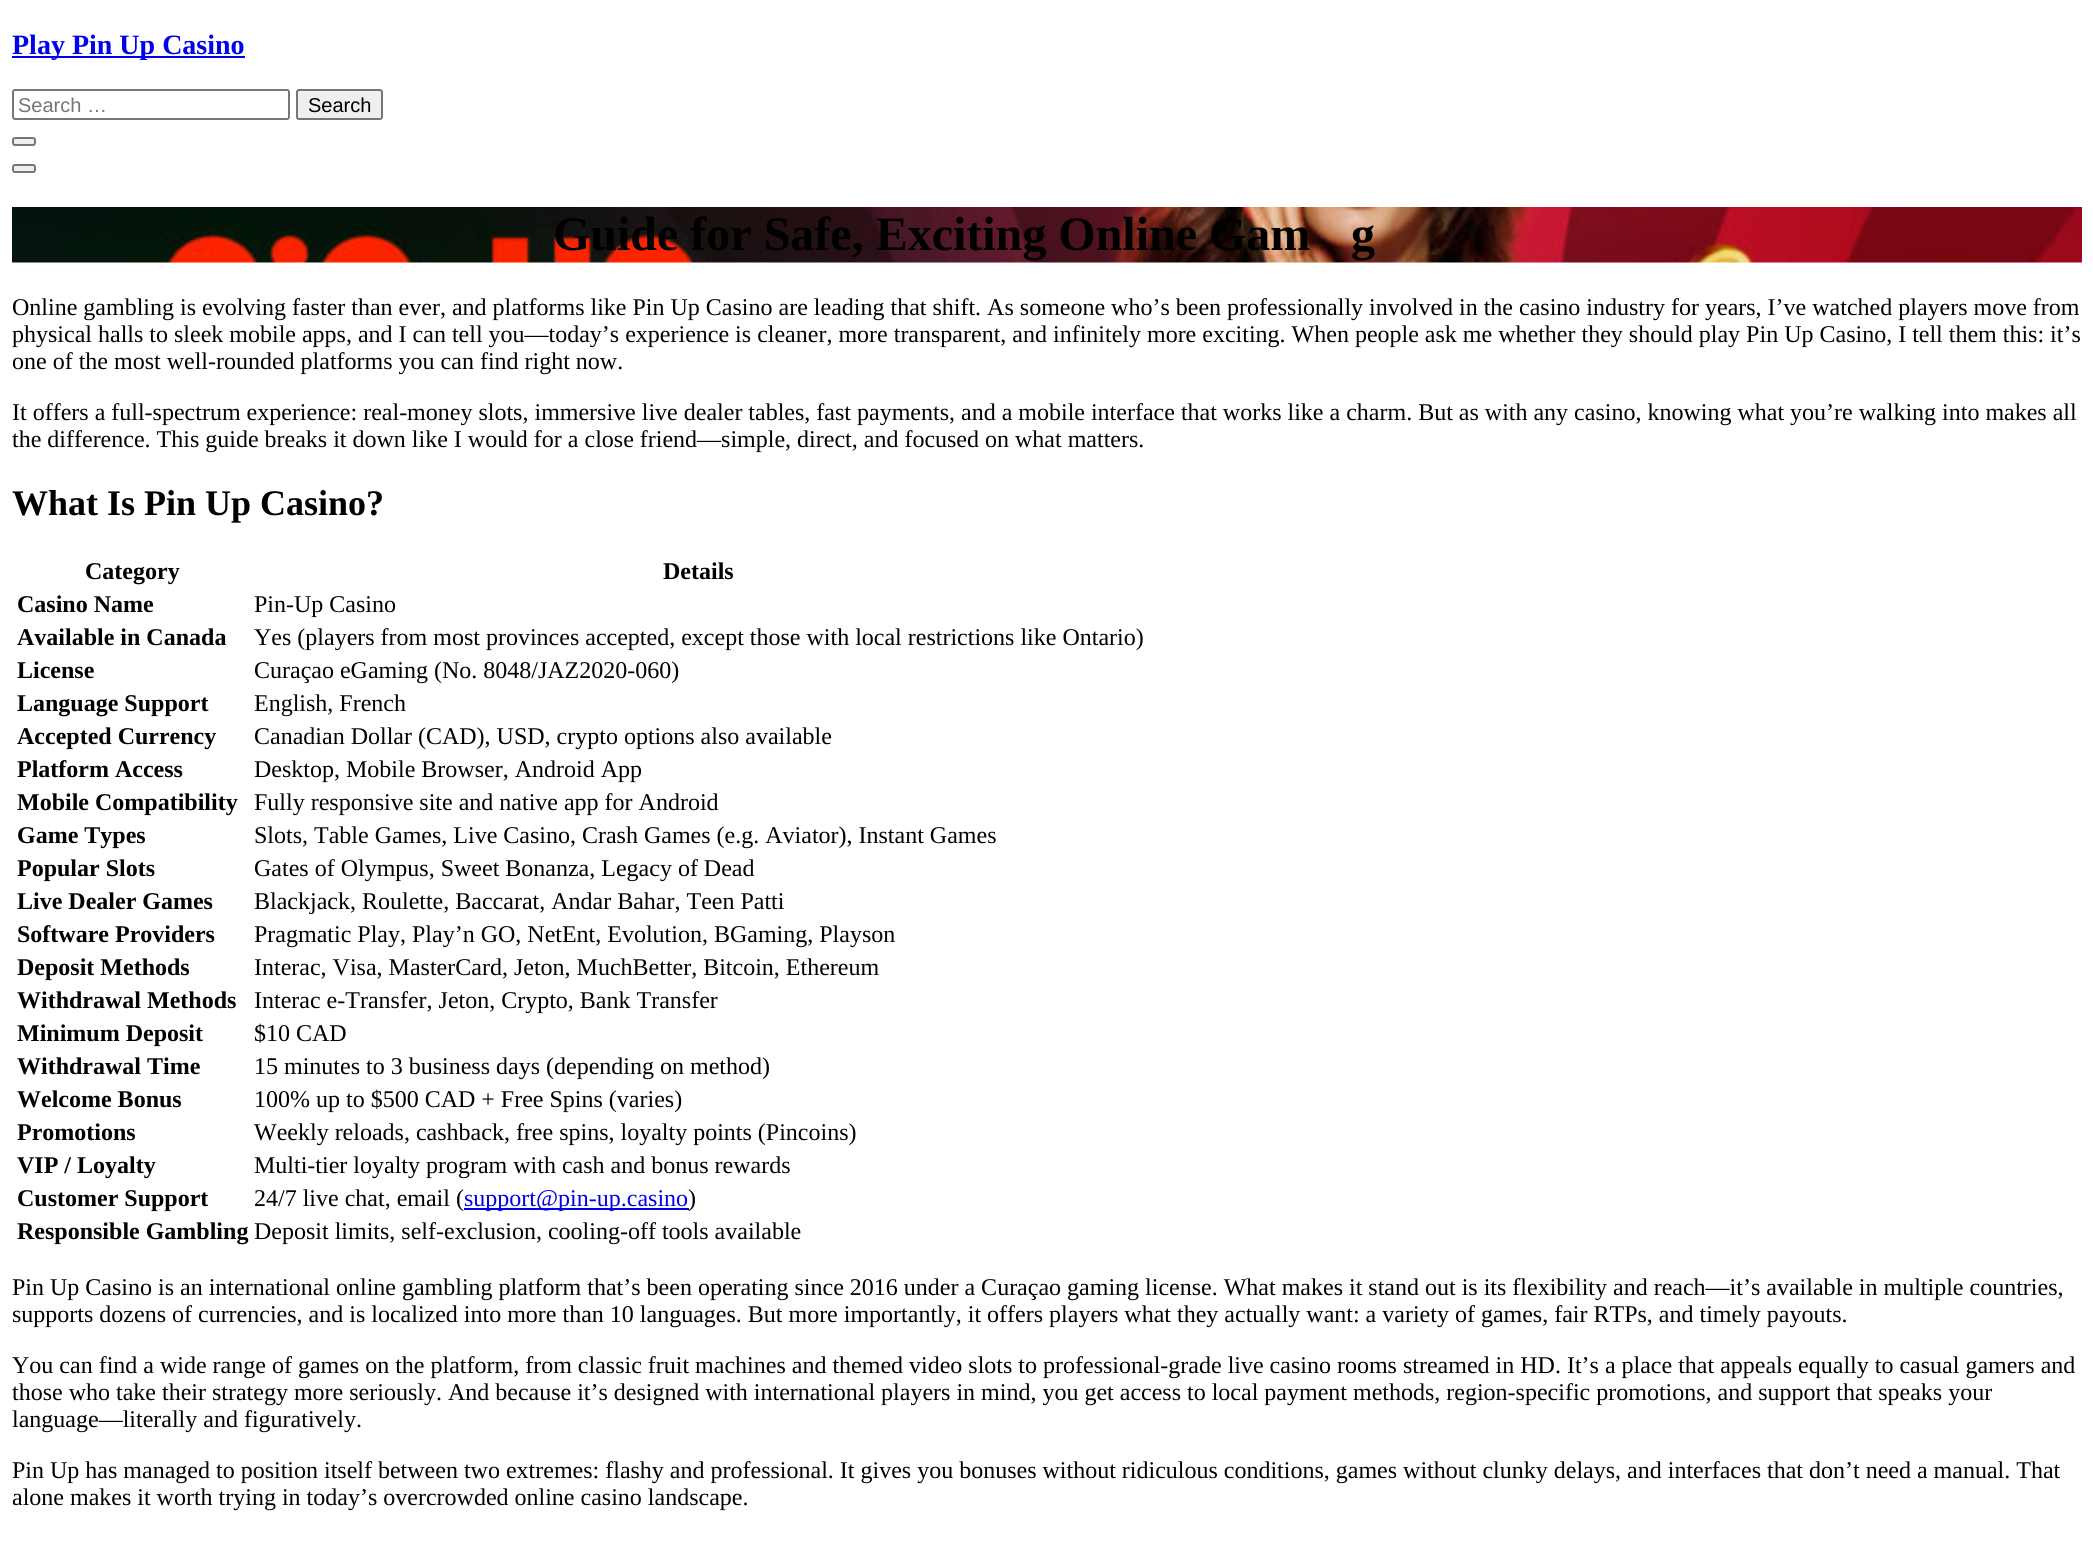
#include <cairo.h>
#include <math.h>
#include <stddef.h>

typedef struct { const char *family; double size; int italic, bold; unsigned color; } style_t;
static cairo_t *ctx;

static void ink(unsigned color) {
    cairo_set_source_rgb(ctx, (color >> 16) / 255.0, (color >> 8 & 255) / 255.0, (color & 255) / 255.0);
}

static void write(double x, double y, const char *s, const style_t *st) {
    cairo_select_font_face(ctx, st->family, st->italic ? CAIRO_FONT_SLANT_ITALIC : CAIRO_FONT_SLANT_NORMAL,
        st->bold ? CAIRO_FONT_WEIGHT_BOLD : CAIRO_FONT_WEIGHT_NORMAL);
    cairo_set_font_size(ctx, st->size);
    ink(st->color);
    cairo_move_to(ctx, x, y);
    cairo_show_text(ctx, s);
}

static void block(double x, double y, double w, double h, unsigned color) {
    ink(color);
    cairo_rectangle(ctx, x, y, w, h);
    cairo_fill(ctx);
}

static void round_path(double x, double y, double w, double h, double r) {
    cairo_new_sub_path(ctx);
    cairo_arc(ctx, x + w - r, y + h - r, r, 0, M_PI / 2);
    cairo_arc(ctx, x + r, y + h - r, r, M_PI / 2, M_PI);
    cairo_arc(ctx, x + r, y + r, r, M_PI, 1.5 * M_PI);
    cairo_arc(ctx, x + w - r, y + r, r, 1.5 * M_PI, 2 * M_PI);
    cairo_close_path(ctx);
}

static void paste(const char *path, double x, double y, double w, double h) {
    cairo_surface_t *image = cairo_image_surface_create_from_png(path);
    cairo_save(ctx);
    cairo_set_source_surface(ctx, image, x, y);
    cairo_rectangle(ctx, x, y, w, h);
    cairo_fill(ctx);
    cairo_restore(ctx);
    cairo_surface_destroy(image);
}

static const style_t s1 = {"Liberation Serif", 28, 0, 1, 0x0000ee};
static const style_t s2 = {"Liberation Sans", 20, 0, 0, 0x757575};
static const style_t s3 = {"Liberation Sans", 20, 0, 0, 0x000000};
static const style_t s4 = {"Liberation Serif", 48, 0, 1, 0x000000};
static const style_t s5 = {"Liberation Serif", 24, 0, 0, 0x000000};
static const style_t s6 = {"Liberation Serif", 36, 0, 1, 0x000000};
static const style_t s7 = {"Liberation Serif", 24, 0, 1, 0x000000};
static const style_t s8 = {"Liberation Serif", 24, 0, 0, 0x0000ee};

int main(void) {
    cairo_surface_t *surface = cairo_image_surface_create(CAIRO_FORMAT_RGB24, 2093, 1553);
    ctx = cairo_create(surface);
    cairo_font_options_t *options = cairo_font_options_create();
    cairo_font_options_set_hint_metrics(options, CAIRO_HINT_METRICS_OFF);
    cairo_font_options_set_hint_style(options, CAIRO_HINT_STYLE_NONE);
    cairo_set_font_options(ctx, options);
    cairo_set_miter_limit(ctx, 4);
    ink(0xffffff);
    cairo_paint(ctx);
    block(12, 56, 233, 2, 0x0000ee);
    write(12, 54, "Play Pin Up Casino", &s1);
    round_path(13, 90, 276, 29, 2);
    ink(0x767676);
    cairo_stroke(ctx);
    write(18, 112, "Search …", &s2);
    ink(0xefefef);
    round_path(297, 90, 85, 29, 2);
    cairo_fill_preserve(ctx);
    ink(0x767676);
    cairo_stroke(ctx);
    write(308, 112, "Search", &s3);
    ink(0xefefef);
    round_path(13, 138, 22, 7, 2);
    cairo_fill_preserve(ctx);
    ink(0x767676);
    cairo_stroke(ctx);
    ink(0xefefef);
    round_path(13, 165, 22, 7, 2);
    cairo_fill_preserve(ctx);
    ink(0x767676);
    cairo_stroke(ctx);
    paste("pic1.png", 12, 207, 2070, 56);
    write(553, 250, "Guide for Safe, Exciting Online Gam", &s4);
    write(1351, 250, "g", &s4);
    write(12, 315, "Online gambling is evolving faster than ever, and platforms like Pin Up Casino are leading that shift. As someone who’s been professionally involved in the casino industry for years, I’ve watched players move from", &s5);
    write(12, 342, "physical halls to sleek mobile apps, and I can tell you—today’s experience is cleaner, more transparent, and infinitely more exciting. When people ask me whether they should play Pin Up Casino, I tell them this: it’s", &s5);
    write(12, 369, "one of the most well-rounded platforms you can find right now.", &s5);
    write(12, 420, "It offers a full-spectrum experience: real-money slots, immersive live dealer tables, fast payments, and a mobile interface that works like a charm. But as with any casino, knowing what you’re walking into makes all", &s5);
    write(12, 447, "the difference. This guide breaks it down like I would for a close friend—simple, direct, and focused on what matters.", &s5);
    write(12, 515, "What Is Pin Up Casino?", &s6);
    write(85, 579, "Category", &s7);
    write(663, 579, "Details", &s7);
    write(17, 612, "Casino Name", &s7);
    write(254, 612, "Pin-Up Casino", &s5);
    write(17, 645, "Available in Canada", &s7);
    write(254, 645, "Yes (players from most provinces accepted, except those with local restrictions like Ontario)", &s5);
    write(17, 678, "License", &s7);
    write(254, 678, "Curaçao eGaming (No. 8048/JAZ2020-060)", &s5);
    write(17, 711, "Language Support", &s7);
    write(254, 711, "English, French", &s5);
    write(17, 744, "Accepted Currency", &s7);
    write(254, 744, "Canadian Dollar (CAD), USD, crypto options also available", &s5);
    write(17, 777, "Platform Access", &s7);
    write(254, 777, "Desktop, Mobile Browser, Android App", &s5);
    write(17, 810, "Mobile Compatibility", &s7);
    write(254, 810, "Fully responsive site and native app for Android", &s5);
    write(17, 843, "Game Types", &s7);
    write(254, 843, "Slots, Table Games, Live Casino, Crash Games (e.g. Aviator), Instant Games", &s5);
    write(17, 876, "Popular Slots", &s7);
    write(254, 876, "Gates of Olympus, Sweet Bonanza, Legacy of Dead", &s5);
    write(17, 909, "Live Dealer Games", &s7);
    write(254, 909, "Blackjack, Roulette, Baccarat, Andar Bahar, Teen Patti", &s5);
    write(17, 942, "Software Providers", &s7);
    write(254, 942, "Pragmatic Play, Play’n GO, NetEnt, Evolution, BGaming, Playson", &s5);
    write(17, 975, "Deposit Methods", &s7);
    write(254, 975, "Interac, Visa, MasterCard, Jeton, MuchBetter, Bitcoin, Ethereum", &s5);
    write(17, 1008, "Withdrawal Methods", &s7);
    write(254, 1008, "Interac e-Transfer, Jeton, Crypto, Bank Transfer", &s5);
    write(17, 1041, "Minimum Deposit", &s7);
    write(254, 1041, "$10 CAD", &s5);
    write(17, 1074, "Withdrawal Time", &s7);
    write(254, 1074, "15 minutes to 3 business days (depending on method)", &s5);
    write(17, 1107, "Welcome Bonus", &s7);
    write(254, 1107, "100% up to $500 CAD + Free Spins (varies)", &s5);
    write(17, 1140, "Promotions", &s7);
    write(254, 1140, "Weekly reloads, cashback, free spins, loyalty points (Pincoins)", &s5);
    write(17, 1173, "VIP / Loyalty", &s7);
    write(254, 1173, "Multi-tier loyalty program with cash and bonus rewards", &s5);
    write(17, 1206, "Customer Support", &s7);
    write(254, 1206, "24/7 live chat, email (", &s5);
    block(464, 1208, 225, 2, 0x0000ee);
    write(464, 1206, "support@pin-up.casino", &s8);
    write(688, 1206, ")", &s5);
    write(17, 1239, "Responsible Gambling", &s7);
    write(254, 1239, "Deposit limits, self-exclusion, cooling-off tools available", &s5);
    write(12, 1295, "Pin Up Casino is an international online gambling platform that’s been operating since 2016 under a Curaçao gaming license. What makes it stand out is its flexibility and reach—it’s available in multiple countries,", &s5);
    write(12, 1322, "supports dozens of currencies, and is localized into more than 10 languages. But more importantly, it offers players what they actually want: a variety of games, fair RTPs, and timely payouts.", &s5);
    write(12, 1373, "You can find a wide range of games on the platform, from classic fruit machines and themed video slots to professional-grade live casino rooms streamed in HD. It’s a place that appeals equally to casual gamers and", &s5);
    write(12, 1400, "those who take their strategy more seriously. And because it’s designed with international players in mind, you get access to local payment methods, region-specific promotions, and support that speaks your", &s5);
    write(12, 1427, "language—literally and figuratively.", &s5);
    write(12, 1478, "Pin Up has managed to position itself between two extremes: flashy and professional. It gives you bonuses without ridiculous conditions, games without clunky delays, and interfaces that don’t need a manual. That", &s5);
    write(12, 1505, "alone makes it worth trying in today’s overcrowded online casino landscape.", &s5);
    cairo_surface_write_to_png(surface, "screenshot.png");
    cairo_font_options_destroy(options);
    cairo_destroy(ctx);
    cairo_surface_destroy(surface);
    return 0;
}
